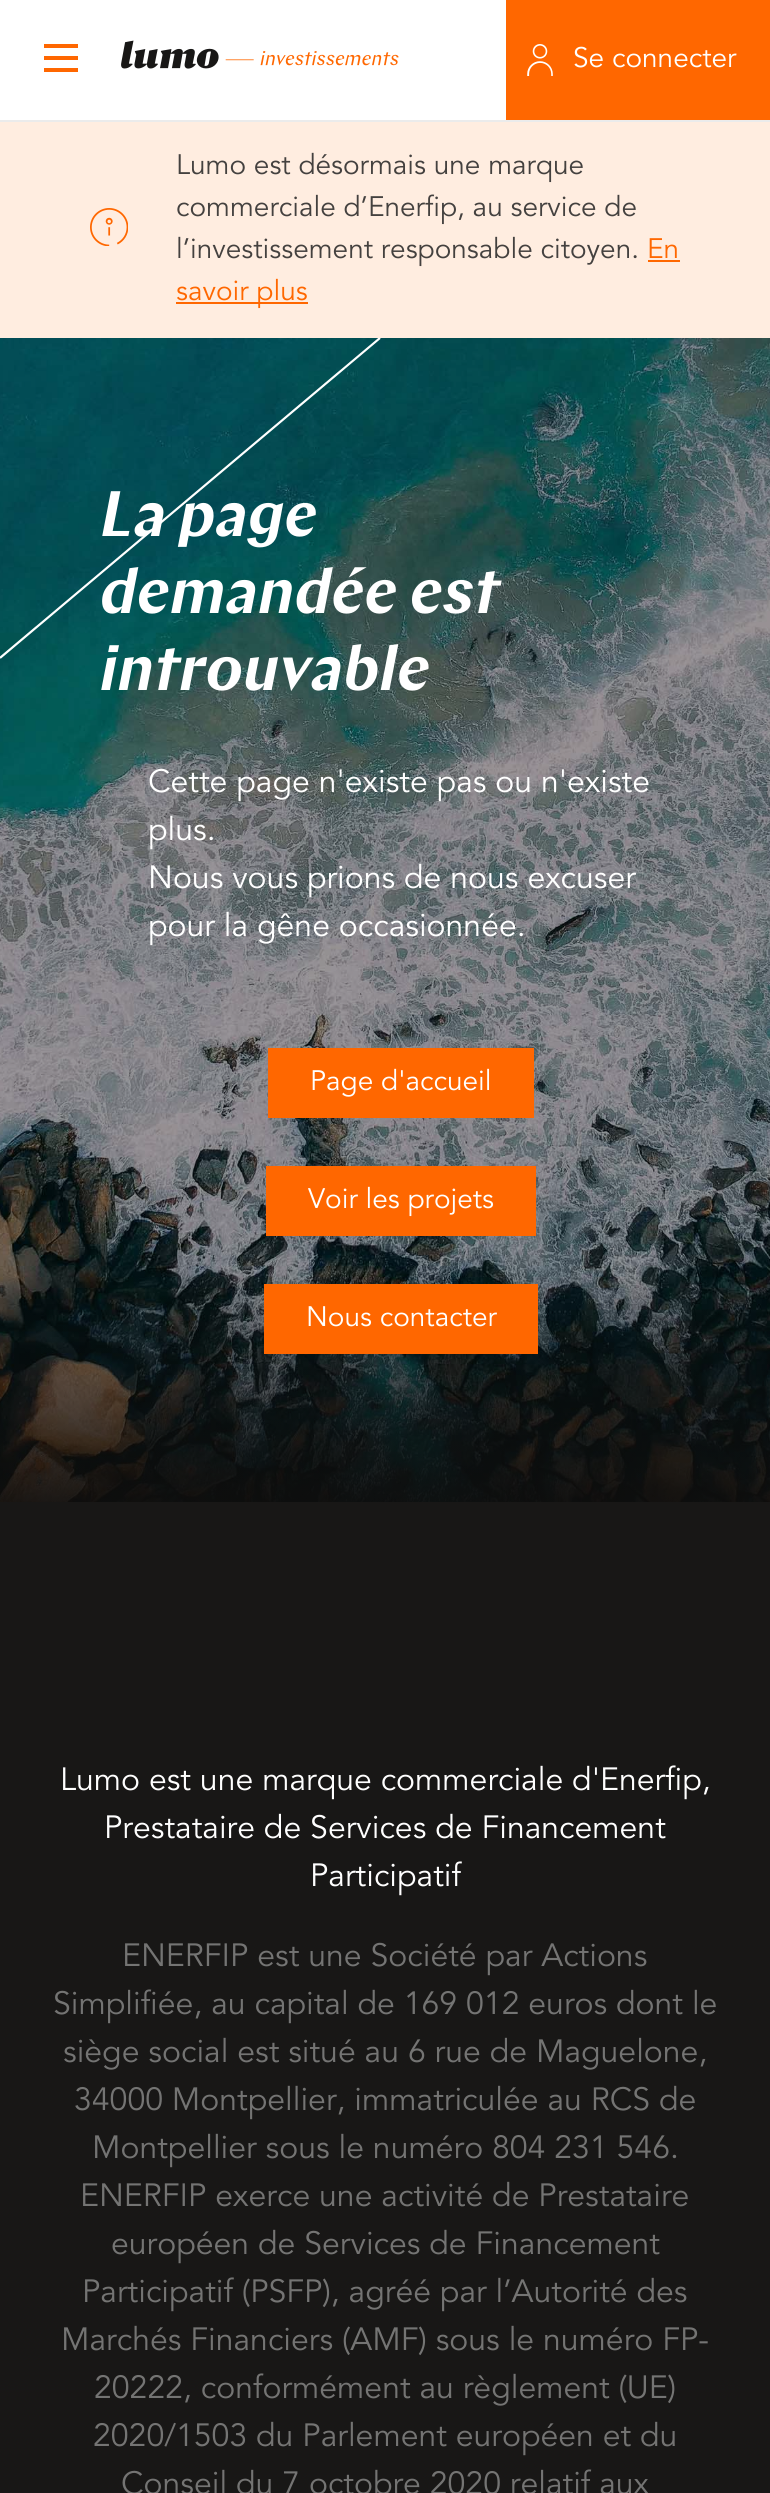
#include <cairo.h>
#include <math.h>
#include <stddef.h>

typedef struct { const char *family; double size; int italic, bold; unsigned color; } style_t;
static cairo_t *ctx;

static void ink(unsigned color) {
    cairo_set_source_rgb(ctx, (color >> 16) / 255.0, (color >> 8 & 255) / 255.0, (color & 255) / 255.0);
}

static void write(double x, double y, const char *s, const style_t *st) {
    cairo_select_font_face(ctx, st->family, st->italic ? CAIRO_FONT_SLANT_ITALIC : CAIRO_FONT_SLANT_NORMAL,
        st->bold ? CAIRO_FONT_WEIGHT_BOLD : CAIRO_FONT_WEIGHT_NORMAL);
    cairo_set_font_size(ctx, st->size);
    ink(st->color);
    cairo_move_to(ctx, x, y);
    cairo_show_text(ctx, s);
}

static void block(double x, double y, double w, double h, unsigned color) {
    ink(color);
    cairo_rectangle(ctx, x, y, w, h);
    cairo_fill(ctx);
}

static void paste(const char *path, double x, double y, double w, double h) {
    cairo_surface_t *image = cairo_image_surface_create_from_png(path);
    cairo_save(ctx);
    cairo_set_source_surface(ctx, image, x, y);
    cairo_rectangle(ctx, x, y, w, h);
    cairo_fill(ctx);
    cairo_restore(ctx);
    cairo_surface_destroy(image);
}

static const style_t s1 = {"Avenir", 28, 0, 0, 0xffffff};
static const style_t s2 = {"Avenir", 28, 0, 0, 0x44413f};
static const style_t s3 = {"Avenir", 28, 0, 0, 0xff6700};
static const style_t s4 = {"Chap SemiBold", 64, 0, 0, 0xffffff};
static const style_t s5 = {"Avenir", 32, 0, 0, 0xffffff};
static const style_t s6 = {"Avenir", 32, 0, 0, 0x747473};

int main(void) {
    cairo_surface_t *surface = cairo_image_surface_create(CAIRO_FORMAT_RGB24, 770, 2493);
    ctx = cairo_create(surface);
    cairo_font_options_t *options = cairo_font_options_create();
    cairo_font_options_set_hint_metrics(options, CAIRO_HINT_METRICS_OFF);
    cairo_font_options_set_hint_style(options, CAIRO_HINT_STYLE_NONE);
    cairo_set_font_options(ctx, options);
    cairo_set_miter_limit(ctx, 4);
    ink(0x181716);
    cairo_paint(ctx);
    block(0, 0, 506, 120, 0xffffff);
    block(0, 120, 770, 2, 0xebebeb);
    block(44, 56, 34, 4, 0xff6700);
    block(44, 44, 34, 4, 0xff6700);
    block(44, 68, 34, 4, 0xff6700);
    paste("pic1.png", 121, 40, 278, 29);
    block(506, 0, 264, 120, 0xff6700);
    paste("pic2.png", 527, 44, 26, 32);
    write(573, 67, "Se connecter", &s1);
    block(0, 122, 770, 216, 0xffede0);
    paste("pic3.png", 90, 208, 38, 38);
    write(176, 174, "Lumo est désormais une marque", &s2);
    write(176, 216, "commerciale d’Enerfip, au service de", &s2);
    write(176, 258, "l’investissement responsable citoyen.", &s2);
    write(647, 258, "En", &s3);
    block(648, 260, 32, 2, 0xff6700);
    block(176, 302, 132, 2, 0xff6700);
    write(176, 300, "savoir plus", &s3);
    paste("pic4.png", 0, 338, 770, 1164);
    paste("pic5.png", 0, 338, 381, 321);
    write(100, 536, "La page", &s4);
    write(100, 613, "demandée est", &s4);
    write(100, 690, "introuvable", &s4);
    write(148, 792, "Cette page n'existe pas ou n'existe", &s5);
    write(148, 840, "plus.", &s5);
    write(148, 888, "Nous vous prions de nous excuser", &s5);
    write(148, 936, "pour la gêne occasionnée.", &s5);
    block(268, 1048, 266, 70, 0xff6700);
    write(310, 1090, "Page d'accueil", &s1);
    block(266, 1166, 270, 70, 0xff6700);
    write(308, 1208, "Voir les projets", &s1);
    block(264, 1284, 274, 70, 0xff6700);
    write(306, 1326, "Nous contacter", &s1);
    write(60, 1790, "Lumo est une marque commerciale d'Enerfip,", &s5);
    write(104, 1838, "Prestataire de Services de Financement", &s5);
    write(310, 1886, "Participatif", &s5);
    write(122, 1966, "ENERFIP est une Société par Actions", &s6);
    write(53, 2014, "Simplifiée, au capital de 169 012 euros dont le", &s6);
    write(63, 2062, "siège social est situé au 6 rue de Maguelone,", &s6);
    write(74, 2110, "34000 Montpellier, immatriculée au RCS de", &s6);
    write(92, 2158, "Montpellier sous le numéro 804 231 546.", &s6);
    write(80, 2206, "ENERFIP exerce une activité de Prestataire", &s6);
    write(111, 2254, "européen de Services de Financement", &s6);
    write(82, 2302, "Participatif (PSFP), agréé par l’Autorité des", &s6);
    write(61, 2350, "Marchés Financiers (AMF) sous le numéro FP-", &s6);
    write(94, 2398, "20222, conformément au règlement (UE)", &s6);
    write(93, 2446, "2020/1503 du Parlement européen et du", &s6);
    write(121, 2494, "Conseil du 7 octobre 2020 relatif aux", &s6);
    cairo_surface_write_to_png(surface, "screenshot.png");
    cairo_font_options_destroy(options);
    cairo_destroy(ctx);
    cairo_surface_destroy(surface);
    return 0;
}
